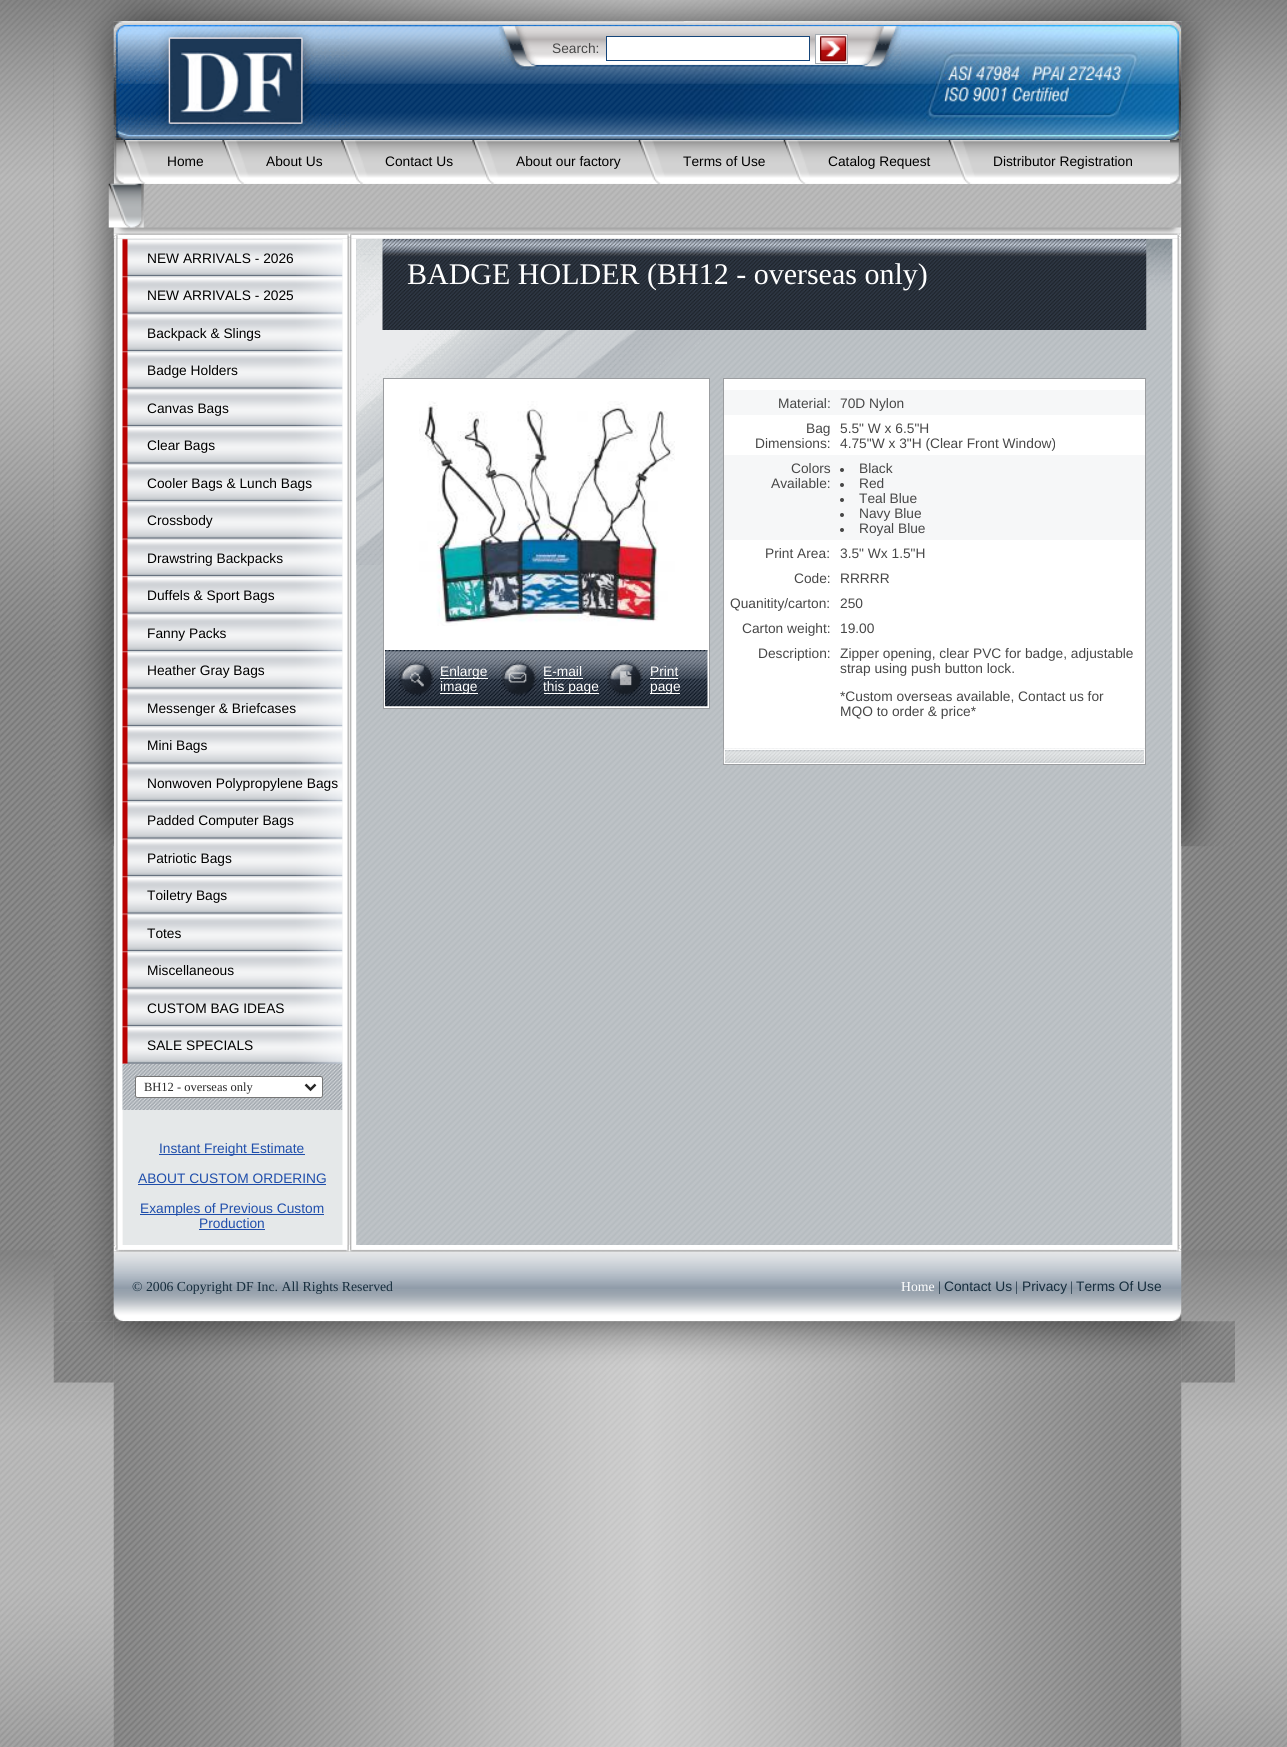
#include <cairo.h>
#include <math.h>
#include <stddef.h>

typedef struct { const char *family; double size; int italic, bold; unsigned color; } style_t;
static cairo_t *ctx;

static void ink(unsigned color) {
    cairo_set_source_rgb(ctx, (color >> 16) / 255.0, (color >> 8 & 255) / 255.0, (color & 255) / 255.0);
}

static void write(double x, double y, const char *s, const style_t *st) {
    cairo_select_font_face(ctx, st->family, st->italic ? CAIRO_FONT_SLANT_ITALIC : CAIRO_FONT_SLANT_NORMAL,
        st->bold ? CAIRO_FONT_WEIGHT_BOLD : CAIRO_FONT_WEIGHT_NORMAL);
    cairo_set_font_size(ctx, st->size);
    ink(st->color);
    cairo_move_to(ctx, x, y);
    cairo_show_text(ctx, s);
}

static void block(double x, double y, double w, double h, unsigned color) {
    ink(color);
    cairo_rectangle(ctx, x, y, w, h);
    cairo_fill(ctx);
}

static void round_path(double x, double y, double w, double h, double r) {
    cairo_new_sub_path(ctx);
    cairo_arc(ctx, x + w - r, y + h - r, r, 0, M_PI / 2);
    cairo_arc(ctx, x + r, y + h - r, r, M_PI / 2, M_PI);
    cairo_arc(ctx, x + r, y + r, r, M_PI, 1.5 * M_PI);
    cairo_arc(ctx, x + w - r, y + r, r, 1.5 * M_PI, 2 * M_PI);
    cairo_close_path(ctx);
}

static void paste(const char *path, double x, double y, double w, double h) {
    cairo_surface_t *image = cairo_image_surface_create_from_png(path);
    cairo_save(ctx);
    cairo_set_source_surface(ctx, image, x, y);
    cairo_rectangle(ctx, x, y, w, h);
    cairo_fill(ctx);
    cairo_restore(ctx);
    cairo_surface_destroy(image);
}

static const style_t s1 = {"Liberation Sans", 13.75, 0, 0, 0x474747};
static const style_t s2 = {"Liberation Sans", 13.75, 0, 0, 0x000000};
static const style_t s3 = {"Liberation Serif", 12.5, 0, 0, 0x262626};
static const style_t s4 = {"Liberation Sans", 13.75, 0, 0, 0x1f4eab};
static const style_t s5 = {"Liberation Serif", 30, 0, 0, 0xffffff};
static const style_t s6 = {"Liberation Sans", 13.75, 0, 0, 0xffffff};
static const style_t s7 = {"Liberation Serif", 13.75, 0, 0, 0x162d3d};
static const style_t s8 = {"Liberation Serif", 13.75, 0, 0, 0xffffff};
static const style_t s9 = {"Liberation Sans", 13.75, 0, 0, 0x162d3d};

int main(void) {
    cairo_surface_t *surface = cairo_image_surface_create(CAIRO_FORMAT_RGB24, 1287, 1747);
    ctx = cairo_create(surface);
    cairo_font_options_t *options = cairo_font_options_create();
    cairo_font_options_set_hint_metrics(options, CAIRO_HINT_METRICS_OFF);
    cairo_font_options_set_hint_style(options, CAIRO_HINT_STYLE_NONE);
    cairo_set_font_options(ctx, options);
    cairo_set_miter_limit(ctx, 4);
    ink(0xffffff);
    cairo_paint(ctx);
    paste("pic1.png", 0, 0, 1287, 1747);
    paste("pic2.png", 54, 0, 1181, 22);
    paste("pic3.png", 53, 21, 61, 1301);
    paste("pic5.png", 113, 21, 1069, 119);
    paste("pic10.png", 113, 140, 1069, 44);
    block(122, 239, 1051, 1006, 0xececec);
    paste("pic21.png", 113, 238, 10, 1007);
    paste("pic4.png", 54, 21, 60, 826);
    paste("pic6.png", 113, 21, 236, 119);
    paste("pic7.png", 683, 21, 499, 119);
    paste("pic8.png", 498, 26, 404, 44);
    write(552, 53, "Search:", &s1);
    block(607, 37, 202, 22, 0xffffff);
    cairo_rectangle(ctx, 606.5, 36.5, 203, 24);
    ink(0x15457a);
    cairo_set_line_width(ctx, 1);
    cairo_stroke(ctx);
    block(816, 35, 31, 24, 0xffffff);
    cairo_rectangle(ctx, 815.5, 34.5, 32, 29);
    ink(0xa5acb2);
    cairo_stroke(ctx);
    paste("pic9.png", 820, 36, 27, 26);
    paste("pic11.png", 123, 140, 119, 44);
    write(167, 166, "Home", &s2);
    paste("pic12.png", 222, 140, 138, 44);
    write(266, 166, "About Us", &s2);
    paste("pic13.png", 341, 140, 151, 44);
    write(385, 166, "Contact Us", &s2);
    paste("pic14.png", 472, 140, 186, 44);
    write(516, 166, "About our factory", &s2);
    paste("pic15.png", 638, 140, 165, 44);
    write(683, 166, "Terms of Use", &s2);
    paste("pic16.png", 783, 140, 185, 44);
    write(828, 166, "Catalog Request", &s2);
    paste("pic17.png", 948, 140, 222, 44);
    write(993, 166, "Distributor Registration", &s2);
    paste("pic19.png", 113, 227, 1069, 7);
    paste("pic18.png", 108, 183, 36, 45);
    block(123, 239, 220, 1006, 0xe5e8e9);
    paste("pic22.png", 122, 238, 221, 39);
    paste("pic23.png", 122, 276, 221, 38);
    paste("pic24.png", 122, 313, 221, 39);
    paste("pic25.png", 122, 351, 221, 38);
    paste("pic24.png", 122, 388, 221, 39);
    paste("pic25.png", 122, 426, 221, 38);
    paste("pic24.png", 122, 463, 221, 39);
    paste("pic25.png", 122, 501, 221, 38);
    paste("pic24.png", 122, 538, 221, 39);
    paste("pic26.png", 122, 576, 221, 38);
    paste("pic24.png", 122, 613, 221, 39);
    paste("pic25.png", 122, 651, 221, 38);
    paste("pic24.png", 122, 688, 221, 39);
    paste("pic25.png", 122, 726, 221, 38);
    paste("pic24.png", 122, 763, 221, 39);
    paste("pic25.png", 122, 801, 221, 38);
    paste("pic24.png", 122, 838, 221, 39);
    paste("pic25.png", 122, 876, 221, 38);
    paste("pic24.png", 122, 913, 221, 39);
    paste("pic25.png", 122, 951, 221, 38);
    paste("pic24.png", 122, 988, 221, 39);
    paste("pic25.png", 122, 1026, 221, 38);
    paste("pic27.png", 122, 1063, 221, 47);
    paste("pic28.png", 342, 238, 15, 1007);
    paste("pic29.png", 356, 238, 817, 1007);
    paste("pic30.png", 356, 238, 817, 327);
    paste("pic31.png", 382, 238, 765, 92);
    paste("pic38.png", 1172, 238, 10, 1007);
    paste("pic20.png", 113, 233, 1069, 6);
    write(147, 263, "NEW ARRIVALS - 2026", &s2);
    write(147, 300, "NEW ARRIVALS - 2025", &s2);
    write(147, 338, "Backpack & Slings", &s2);
    write(147, 375, "Badge Holders", &s2);
    write(147, 413, "Canvas Bags", &s2);
    write(147, 450, "Clear Bags", &s2);
    write(147, 488, "Cooler Bags & Lunch Bags", &s2);
    write(147, 525, "Crossbody", &s2);
    write(147, 563, "Drawstring Backpacks", &s2);
    write(147, 600, "Duffels & Sport Bags", &s2);
    write(147, 638, "Fanny Packs", &s2);
    write(147, 675, "Heather Gray Bags", &s2);
    write(147, 713, "Messenger & Briefcases", &s2);
    write(147, 750, "Mini Bags", &s2);
    write(147, 788, "Nonwoven Polypropylene Bags", &s2);
    write(147, 825, "Padded Computer Bags", &s2);
    write(147, 863, "Patriotic Bags", &s2);
    write(147, 900, "Toiletry Bags", &s2);
    write(147, 938, "Totes", &s2);
    write(147, 975, "Miscellaneous", &s2);
    write(147, 1013, "CUSTOM BAG IDEAS", &s2);
    write(147, 1050, "SALE SPECIALS", &s2);
    ink(0xffffff);
    round_path(135.5, 1076.5, 187, 21, 2);
    cairo_fill_preserve(ctx);
    ink(0x767676);
    cairo_stroke(ctx);
    cairo_new_path(ctx);
    cairo_move_to(ctx, 305.5, 1084.5);
    cairo_line_to(ctx, 310.5, 1089.5);
    cairo_line_to(ctx, 315.5, 1084.5);
    ink(0x262626);
    cairo_set_line_width(ctx, 2.5);
    cairo_stroke(ctx);
    write(144, 1091, "BH12 - overseas only", &s3);
    block(159, 1154, 146, 1, 0x1f4eab);
    write(159, 1153, "Instant Freight Estimate", &s4);
    write(138, 1183, "ABOUT CUSTOM ORDERING", &s4);
    block(138, 1184, 188, 1, 0x1f4eab);
    block(140, 1214, 184, 1, 0x1f4eab);
    write(140, 1213, "Examples of Previous Custom", &s4);
    write(199, 1228, "Production", &s4);
    block(199, 1229, 66, 1, 0x1f4eab);
    write(407, 284, "BADGE HOLDER (BH12 - overseas only)", &s5);
    cairo_rectangle(ctx, 383.5, 378.5, 326, 330);
    cairo_fill_preserve(ctx);
    ink(0x9b9da0);
    cairo_set_line_width(ctx, 1);
    cairo_stroke(ctx);
    paste("pic32.png", 419, 401, 256, 225);
    paste("pic33.png", 385, 650, 323, 57);
    paste("pic34.png", 398, 660, 36, 37);
    block(440, 678, 48, 1, 0xffffff);
    write(440, 676, "Enlarge", &s6);
    block(440, 693, 38, 1, 0xffffff);
    write(440, 691, "image", &s6);
    paste("pic35.png", 501, 660, 36, 37);
    write(543, 676, "E-mail", &s6);
    block(544, 678, 39, 1, 0xffffff);
    block(544, 693, 55, 1, 0xffffff);
    write(543, 691, "this page", &s6);
    paste("pic36.png", 607, 660, 36, 37);
    write(650, 676, "Print", &s6);
    block(650, 678, 28, 1, 0xffffff);
    block(650, 693, 30, 1, 0xffffff);
    write(650, 691, "page", &s6);
    block(724, 379, 421, 370, 0xffffff);
    cairo_rectangle(ctx, 723.5, 378.5, 422, 386);
    ink(0x9b9da0);
    cairo_stroke(ctx);
    block(724, 390, 421, 25, 0xf6f7f8);
    write(778, 408, "Material:", &s1);
    write(840, 408, "70D Nylon", &s1);
    write(806, 433, "Bag", &s1);
    write(755, 448, "Dimensions:", &s1);
    write(840, 433, "5.5\" W x 6.5\"H", &s1);
    write(840, 448, "4.75\"W x 3\"H (Clear Front Window)", &s1);
    block(724, 455, 421, 85, 0xf6f7f8);
    write(791, 473, "Colors", &s1);
    write(771, 488, "Available:", &s1);
    cairo_new_path(ctx);
    cairo_arc(ctx, 842, 470, 2, 0, 2 * M_PI);
    cairo_fill(ctx);
    write(859, 473, "Black", &s1);
    cairo_new_path(ctx);
    cairo_arc(ctx, 842, 485, 2, 0, 2 * M_PI);
    cairo_fill(ctx);
    write(859, 488, "Red", &s1);
    cairo_new_path(ctx);
    cairo_arc(ctx, 842, 500, 2, 0, 2 * M_PI);
    cairo_fill(ctx);
    write(859, 503, "Teal Blue", &s1);
    cairo_new_path(ctx);
    cairo_arc(ctx, 842, 515, 2, 0, 2 * M_PI);
    cairo_fill(ctx);
    write(859, 518, "Navy Blue", &s1);
    cairo_new_path(ctx);
    cairo_arc(ctx, 842, 530, 2, 0, 2 * M_PI);
    cairo_fill(ctx);
    write(859, 533, "Royal Blue", &s1);
    write(765, 558, "Print Area:", &s1);
    write(840, 558, "3.5\" Wx 1.5\"H", &s1);
    write(794, 583, "Code:", &s1);
    write(840, 583, "RRRRR", &s1);
    write(730, 608, "Quanitity/carton:", &s1);
    write(840, 608, "250", &s1);
    write(742, 633, "Carton weight:", &s1);
    write(840, 633, "19.00", &s1);
    write(758, 658, "Description:", &s1);
    write(840, 658, "Zipper opening, clear PVC for badge, adjustable", &s1);
    write(840, 673, "strap using push button lock.", &s1);
    write(840, 701, "*Custom overseas available, Contact us for", &s1);
    write(840, 716, "MQO to order & price*", &s1);
    paste("pic37.png", 723, 748, 422, 16);
    cairo_rectangle(ctx, 724.5, 749.5, 420, 14);
    ink(0xffffff);
    cairo_stroke(ctx);
    paste("pic40.png", 113, 1251, 1069, 71);
    paste("pic39.png", 113, 1245, 1069, 7);
    write(132, 1291, "© 2006 Copyright DF Inc. All Rights Reserved", &s7);
    write(901, 1291, "Home", &s8);
    write(938, 1291, "|", &s7);
    write(944, 1291, "Contact Us", &s9);
    write(1015, 1291, "|", &s7);
    write(1022, 1291, "Privacy", &s9);
    write(1070, 1291, "|", &s7);
    write(1076, 1291, "Terms Of Use", &s9);
    paste("pic41.png", 1181, 21, 54, 826);
    paste("pic43.png", 113, 1321, 1069, 426);
    paste("pic42.png", 53, 1321, 61, 62);
    paste("pic44.png", 113, 1321, 1069, 62);
    paste("pic45.png", 1181, 1321, 54, 62);
    cairo_surface_write_to_png(surface, "screenshot.png");
    cairo_font_options_destroy(options);
    cairo_destroy(ctx);
    cairo_surface_destroy(surface);
    return 0;
}
